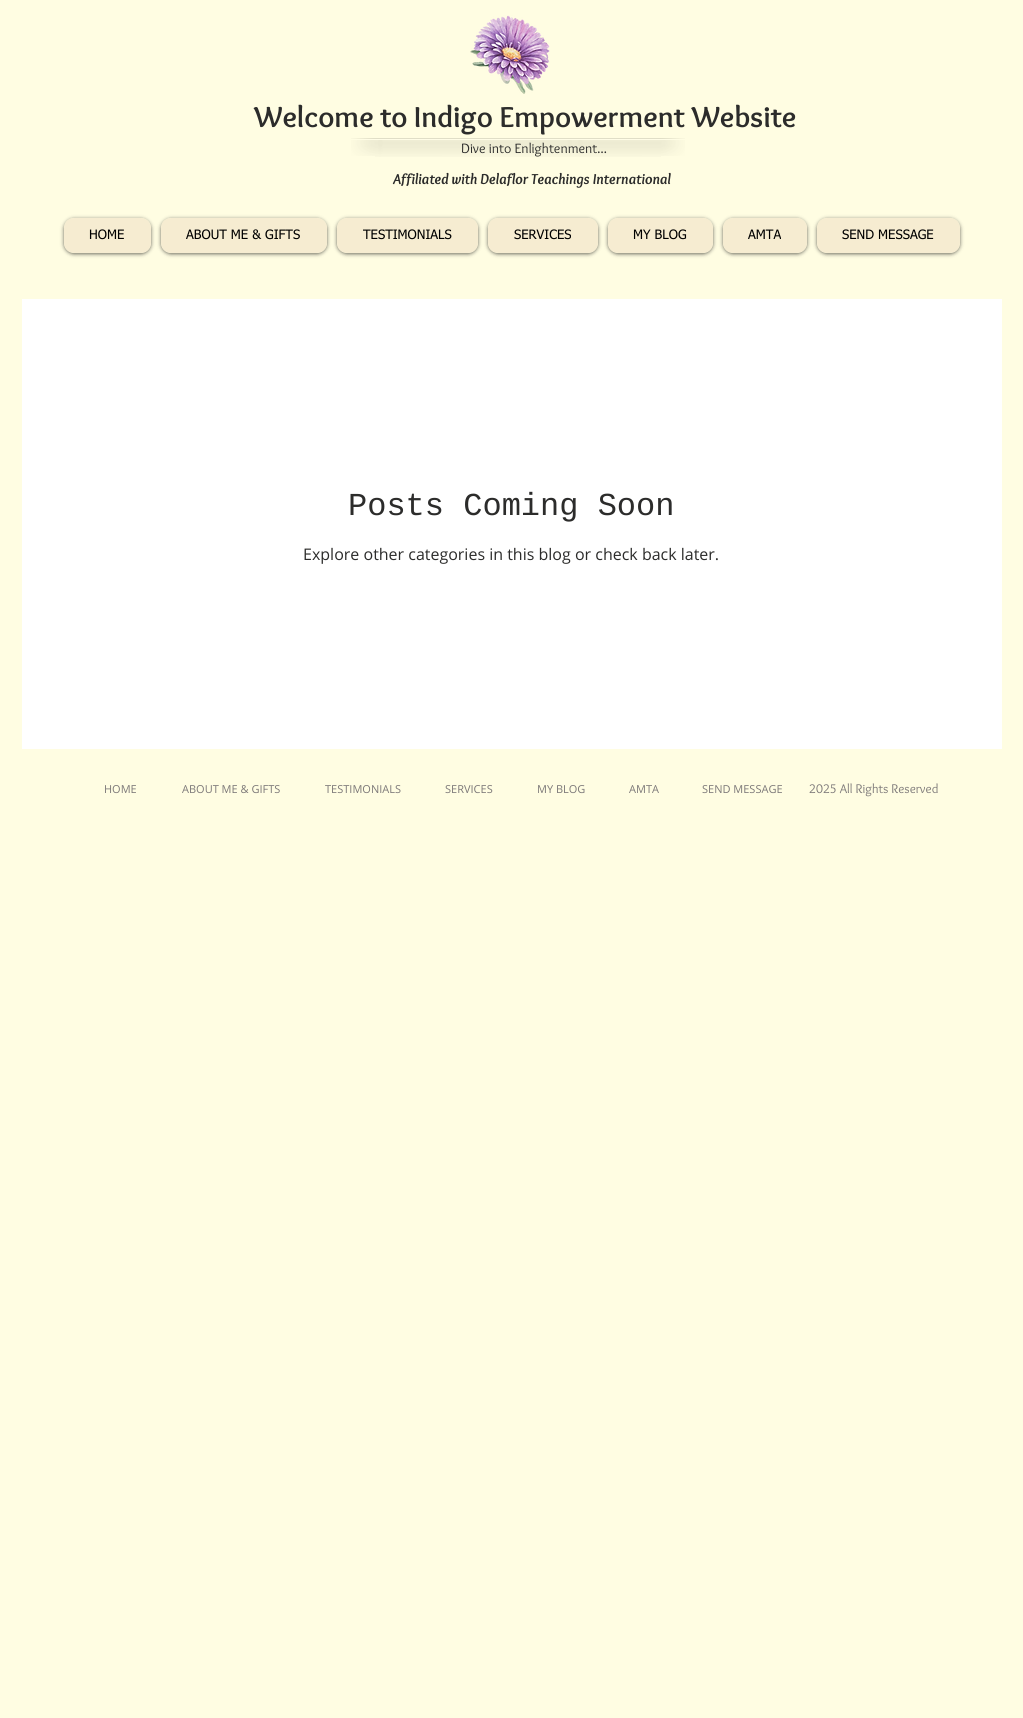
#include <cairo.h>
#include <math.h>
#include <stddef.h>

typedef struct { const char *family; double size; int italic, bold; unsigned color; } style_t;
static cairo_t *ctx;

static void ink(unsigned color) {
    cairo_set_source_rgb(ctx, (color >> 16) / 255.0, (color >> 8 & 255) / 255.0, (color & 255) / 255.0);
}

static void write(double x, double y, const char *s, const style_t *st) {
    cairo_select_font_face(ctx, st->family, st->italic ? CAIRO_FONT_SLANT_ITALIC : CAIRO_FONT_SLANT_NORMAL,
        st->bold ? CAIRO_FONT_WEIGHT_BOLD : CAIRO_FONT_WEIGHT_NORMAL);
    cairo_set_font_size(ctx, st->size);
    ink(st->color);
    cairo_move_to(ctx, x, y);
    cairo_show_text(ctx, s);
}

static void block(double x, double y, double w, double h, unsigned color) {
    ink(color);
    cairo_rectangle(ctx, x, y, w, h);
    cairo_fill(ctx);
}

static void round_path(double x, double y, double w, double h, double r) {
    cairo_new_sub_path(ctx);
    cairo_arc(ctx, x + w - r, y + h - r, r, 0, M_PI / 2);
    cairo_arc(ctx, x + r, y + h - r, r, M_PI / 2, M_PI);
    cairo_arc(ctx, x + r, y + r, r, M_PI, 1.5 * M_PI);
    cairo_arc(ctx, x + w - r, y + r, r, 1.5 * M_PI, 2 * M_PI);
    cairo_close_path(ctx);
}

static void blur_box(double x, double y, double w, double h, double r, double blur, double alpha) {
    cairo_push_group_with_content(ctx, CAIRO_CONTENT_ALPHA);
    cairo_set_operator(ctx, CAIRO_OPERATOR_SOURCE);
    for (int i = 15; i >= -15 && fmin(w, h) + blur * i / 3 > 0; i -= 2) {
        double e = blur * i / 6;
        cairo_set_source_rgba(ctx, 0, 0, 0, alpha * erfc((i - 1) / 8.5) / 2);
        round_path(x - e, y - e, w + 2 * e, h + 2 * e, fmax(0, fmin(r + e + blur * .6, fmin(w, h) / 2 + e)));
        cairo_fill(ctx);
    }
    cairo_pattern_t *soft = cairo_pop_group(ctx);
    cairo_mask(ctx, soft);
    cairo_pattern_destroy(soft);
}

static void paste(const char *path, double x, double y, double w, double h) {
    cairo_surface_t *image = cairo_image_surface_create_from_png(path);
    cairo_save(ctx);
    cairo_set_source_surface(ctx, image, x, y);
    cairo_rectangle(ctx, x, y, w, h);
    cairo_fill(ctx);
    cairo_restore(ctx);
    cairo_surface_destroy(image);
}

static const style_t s1 = {"Overlock", 30, 0, 1, 0x2c2c2b};
static const style_t s2 = {"Overlock", 14, 0, 0, 0x2c2c2b};
static const style_t s3 = {"Overlock", 15, 1, 1, 0x2c2c2b};
static const style_t s4 = {"tahoma", 13, 0, 0, 0x000000};
static const style_t s5 = {"Liberation Mono", 32, 0, 0, 0x2c2c2b};
static const style_t s6 = {"Open Sans", 16, 0, 0, 0x2c2c2b};
static const style_t s7 = {"Open Sans", 11, 0, 0, 0x7c7878};
static const style_t s8 = {"Overlock", 13, 0, 0, 0x7c7878};

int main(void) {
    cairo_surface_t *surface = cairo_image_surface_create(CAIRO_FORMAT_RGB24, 1023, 1718);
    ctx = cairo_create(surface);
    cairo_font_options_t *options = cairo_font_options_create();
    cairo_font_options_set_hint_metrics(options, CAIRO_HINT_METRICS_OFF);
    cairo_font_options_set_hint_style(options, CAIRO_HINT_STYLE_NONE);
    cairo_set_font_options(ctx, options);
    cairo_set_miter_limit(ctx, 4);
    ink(0xfffde2);
    cairo_paint(ctx);
    paste("pic1.png", 470, 15, 80, 79);
    write(254, 127, "Welcome to Indigo Empowerment Website", &s1);
    paste("pic2.png", 351, 138, 24, 18);
    paste("pic3.png", 375, 138, 286, 19);
    paste("pic4.png", 661, 138, 24, 18);
    write(461, 153, "Dive into Enlightenment...", &s2);
    write(393, 184, "Affiliated with Delaflor Teachings International", &s3);
    cairo_save(ctx);
    cairo_set_fill_rule(ctx, CAIRO_FILL_RULE_EVEN_ODD);
    cairo_new_path(ctx);
    cairo_move_to(ctx, 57, 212);
    cairo_line_to(ctx, 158, 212);
    cairo_line_to(ctx, 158, 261);
    cairo_line_to(ctx, 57, 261);
    cairo_close_path(ctx);
    cairo_move_to(ctx, 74, 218);
    cairo_line_to(ctx, 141, 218);
    cairo_curve_to(ctx, 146.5, 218, 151, 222.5, 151, 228);
    cairo_line_to(ctx, 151, 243);
    cairo_curve_to(ctx, 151, 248.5, 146.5, 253, 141, 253);
    cairo_line_to(ctx, 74, 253);
    cairo_curve_to(ctx, 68.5, 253, 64, 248.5, 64, 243);
    cairo_line_to(ctx, 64, 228);
    cairo_curve_to(ctx, 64, 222.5, 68.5, 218, 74, 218);
    cairo_close_path(ctx);
    cairo_clip(ctx);
    ink(0x000000);
    blur_box(64, 219, 87, 35, 10, 2, 0.6);
    cairo_restore(ctx);
    cairo_set_source_rgba(ctx, 0.859, 0.722, 0.604, 0.24);
    round_path(64, 218, 87, 35, 10);
    cairo_fill(ctx);
    write(89, 239, "HOME", &s4);
    cairo_save(ctx);
    cairo_set_fill_rule(ctx, CAIRO_FILL_RULE_EVEN_ODD);
    cairo_new_path(ctx);
    cairo_move_to(ctx, 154, 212);
    cairo_line_to(ctx, 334, 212);
    cairo_line_to(ctx, 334, 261);
    cairo_line_to(ctx, 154, 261);
    cairo_close_path(ctx);
    cairo_move_to(ctx, 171, 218);
    cairo_line_to(ctx, 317, 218);
    cairo_curve_to(ctx, 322.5, 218, 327, 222.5, 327, 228);
    cairo_line_to(ctx, 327, 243);
    cairo_curve_to(ctx, 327, 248.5, 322.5, 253, 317, 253);
    cairo_line_to(ctx, 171, 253);
    cairo_curve_to(ctx, 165.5, 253, 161, 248.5, 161, 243);
    cairo_line_to(ctx, 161, 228);
    cairo_curve_to(ctx, 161, 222.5, 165.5, 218, 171, 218);
    cairo_close_path(ctx);
    cairo_clip(ctx);
    ink(0x000000);
    blur_box(161, 219, 166, 35, 10, 2, 0.6);
    cairo_restore(ctx);
    cairo_set_source_rgba(ctx, 0.859, 0.722, 0.604, 0.24);
    round_path(161, 218, 166, 35, 10);
    cairo_fill(ctx);
    write(186, 239, "ABOUT ME & GIFTS", &s4);
    cairo_save(ctx);
    cairo_set_fill_rule(ctx, CAIRO_FILL_RULE_EVEN_ODD);
    cairo_new_path(ctx);
    cairo_move_to(ctx, 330, 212);
    cairo_line_to(ctx, 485, 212);
    cairo_line_to(ctx, 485, 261);
    cairo_line_to(ctx, 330, 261);
    cairo_close_path(ctx);
    cairo_move_to(ctx, 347, 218);
    cairo_line_to(ctx, 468, 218);
    cairo_curve_to(ctx, 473.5, 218, 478, 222.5, 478, 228);
    cairo_line_to(ctx, 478, 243);
    cairo_curve_to(ctx, 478, 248.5, 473.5, 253, 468, 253);
    cairo_line_to(ctx, 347, 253);
    cairo_curve_to(ctx, 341.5, 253, 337, 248.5, 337, 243);
    cairo_line_to(ctx, 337, 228);
    cairo_curve_to(ctx, 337, 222.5, 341.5, 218, 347, 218);
    cairo_close_path(ctx);
    cairo_clip(ctx);
    ink(0x000000);
    blur_box(337, 219, 141, 35, 10, 2, 0.6);
    cairo_restore(ctx);
    cairo_set_source_rgba(ctx, 0.859, 0.722, 0.604, 0.24);
    round_path(337, 218, 141, 35, 10);
    cairo_fill(ctx);
    write(363, 239, "TESTIMONIALS", &s4);
    cairo_save(ctx);
    cairo_set_fill_rule(ctx, CAIRO_FILL_RULE_EVEN_ODD);
    cairo_new_path(ctx);
    cairo_move_to(ctx, 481, 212);
    cairo_line_to(ctx, 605, 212);
    cairo_line_to(ctx, 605, 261);
    cairo_line_to(ctx, 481, 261);
    cairo_close_path(ctx);
    cairo_move_to(ctx, 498, 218);
    cairo_line_to(ctx, 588, 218);
    cairo_curve_to(ctx, 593.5, 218, 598, 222.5, 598, 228);
    cairo_line_to(ctx, 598, 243);
    cairo_curve_to(ctx, 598, 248.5, 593.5, 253, 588, 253);
    cairo_line_to(ctx, 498, 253);
    cairo_curve_to(ctx, 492.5, 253, 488, 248.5, 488, 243);
    cairo_line_to(ctx, 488, 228);
    cairo_curve_to(ctx, 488, 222.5, 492.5, 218, 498, 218);
    cairo_close_path(ctx);
    cairo_clip(ctx);
    ink(0x000000);
    blur_box(488, 219, 110, 35, 10, 2, 0.6);
    cairo_restore(ctx);
    cairo_set_source_rgba(ctx, 0.859, 0.722, 0.604, 0.24);
    round_path(488, 218, 110, 35, 10);
    cairo_fill(ctx);
    write(514, 239, "SERVICES", &s4);
    cairo_save(ctx);
    cairo_set_fill_rule(ctx, CAIRO_FILL_RULE_EVEN_ODD);
    cairo_new_path(ctx);
    cairo_move_to(ctx, 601, 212);
    cairo_line_to(ctx, 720, 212);
    cairo_line_to(ctx, 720, 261);
    cairo_line_to(ctx, 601, 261);
    cairo_close_path(ctx);
    cairo_move_to(ctx, 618, 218);
    cairo_line_to(ctx, 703, 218);
    cairo_curve_to(ctx, 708.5, 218, 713, 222.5, 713, 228);
    cairo_line_to(ctx, 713, 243);
    cairo_curve_to(ctx, 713, 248.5, 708.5, 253, 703, 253);
    cairo_line_to(ctx, 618, 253);
    cairo_curve_to(ctx, 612.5, 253, 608, 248.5, 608, 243);
    cairo_line_to(ctx, 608, 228);
    cairo_curve_to(ctx, 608, 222.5, 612.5, 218, 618, 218);
    cairo_close_path(ctx);
    cairo_clip(ctx);
    ink(0x000000);
    blur_box(608, 219, 105, 35, 10, 2, 0.6);
    cairo_restore(ctx);
    cairo_set_source_rgba(ctx, 0.859, 0.722, 0.604, 0.24);
    round_path(608, 218, 105, 35, 10);
    cairo_fill(ctx);
    write(633, 239, "MY BLOG", &s4);
    cairo_save(ctx);
    cairo_set_fill_rule(ctx, CAIRO_FILL_RULE_EVEN_ODD);
    cairo_new_path(ctx);
    cairo_move_to(ctx, 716, 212);
    cairo_line_to(ctx, 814, 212);
    cairo_line_to(ctx, 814, 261);
    cairo_line_to(ctx, 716, 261);
    cairo_close_path(ctx);
    cairo_move_to(ctx, 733, 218);
    cairo_line_to(ctx, 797, 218);
    cairo_curve_to(ctx, 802.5, 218, 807, 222.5, 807, 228);
    cairo_line_to(ctx, 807, 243);
    cairo_curve_to(ctx, 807, 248.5, 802.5, 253, 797, 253);
    cairo_line_to(ctx, 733, 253);
    cairo_curve_to(ctx, 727.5, 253, 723, 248.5, 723, 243);
    cairo_line_to(ctx, 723, 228);
    cairo_curve_to(ctx, 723, 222.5, 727.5, 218, 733, 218);
    cairo_close_path(ctx);
    cairo_clip(ctx);
    ink(0x000000);
    blur_box(723, 219, 84, 35, 10, 2, 0.6);
    cairo_restore(ctx);
    cairo_set_source_rgba(ctx, 0.859, 0.722, 0.604, 0.24);
    round_path(723, 218, 84, 35, 10);
    cairo_fill(ctx);
    write(748, 239, "AMTA", &s4);
    cairo_save(ctx);
    cairo_set_fill_rule(ctx, CAIRO_FILL_RULE_EVEN_ODD);
    cairo_new_path(ctx);
    cairo_move_to(ctx, 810, 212);
    cairo_line_to(ctx, 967, 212);
    cairo_line_to(ctx, 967, 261);
    cairo_line_to(ctx, 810, 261);
    cairo_close_path(ctx);
    cairo_move_to(ctx, 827, 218);
    cairo_line_to(ctx, 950, 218);
    cairo_curve_to(ctx, 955.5, 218, 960, 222.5, 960, 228);
    cairo_line_to(ctx, 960, 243);
    cairo_curve_to(ctx, 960, 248.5, 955.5, 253, 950, 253);
    cairo_line_to(ctx, 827, 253);
    cairo_curve_to(ctx, 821.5, 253, 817, 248.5, 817, 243);
    cairo_line_to(ctx, 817, 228);
    cairo_curve_to(ctx, 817, 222.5, 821.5, 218, 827, 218);
    cairo_close_path(ctx);
    cairo_clip(ctx);
    ink(0x000000);
    blur_box(817, 219, 143, 35, 10, 2, 0.6);
    cairo_restore(ctx);
    cairo_set_source_rgba(ctx, 0.859, 0.722, 0.604, 0.24);
    round_path(817, 218, 143, 35, 10);
    cairo_fill(ctx);
    write(842, 239, "SEND MESSAGE", &s4);
    block(22, 299, 980, 450, 0xffffff);
    write(348, 515, "Posts Coming Soon", &s5);
    write(303, 560, "Explore other categories in this blog or check back later.", &s6);
    write(104, 793, "HOME", &s7);
    write(182, 793, "ABOUT ME & GIFTS", &s7);
    write(325, 793, "TESTIMONIALS", &s7);
    write(445, 793, "SERVICES", &s7);
    write(537, 793, "MY BLOG", &s7);
    write(629, 793, "AMTA", &s7);
    write(702, 793, "SEND MESSAGE", &s7);
    write(809, 793, "2025 All Rights Reserved", &s8);
    cairo_surface_write_to_png(surface, "screenshot.png");
    cairo_font_options_destroy(options);
    cairo_destroy(ctx);
    cairo_surface_destroy(surface);
    return 0;
}
